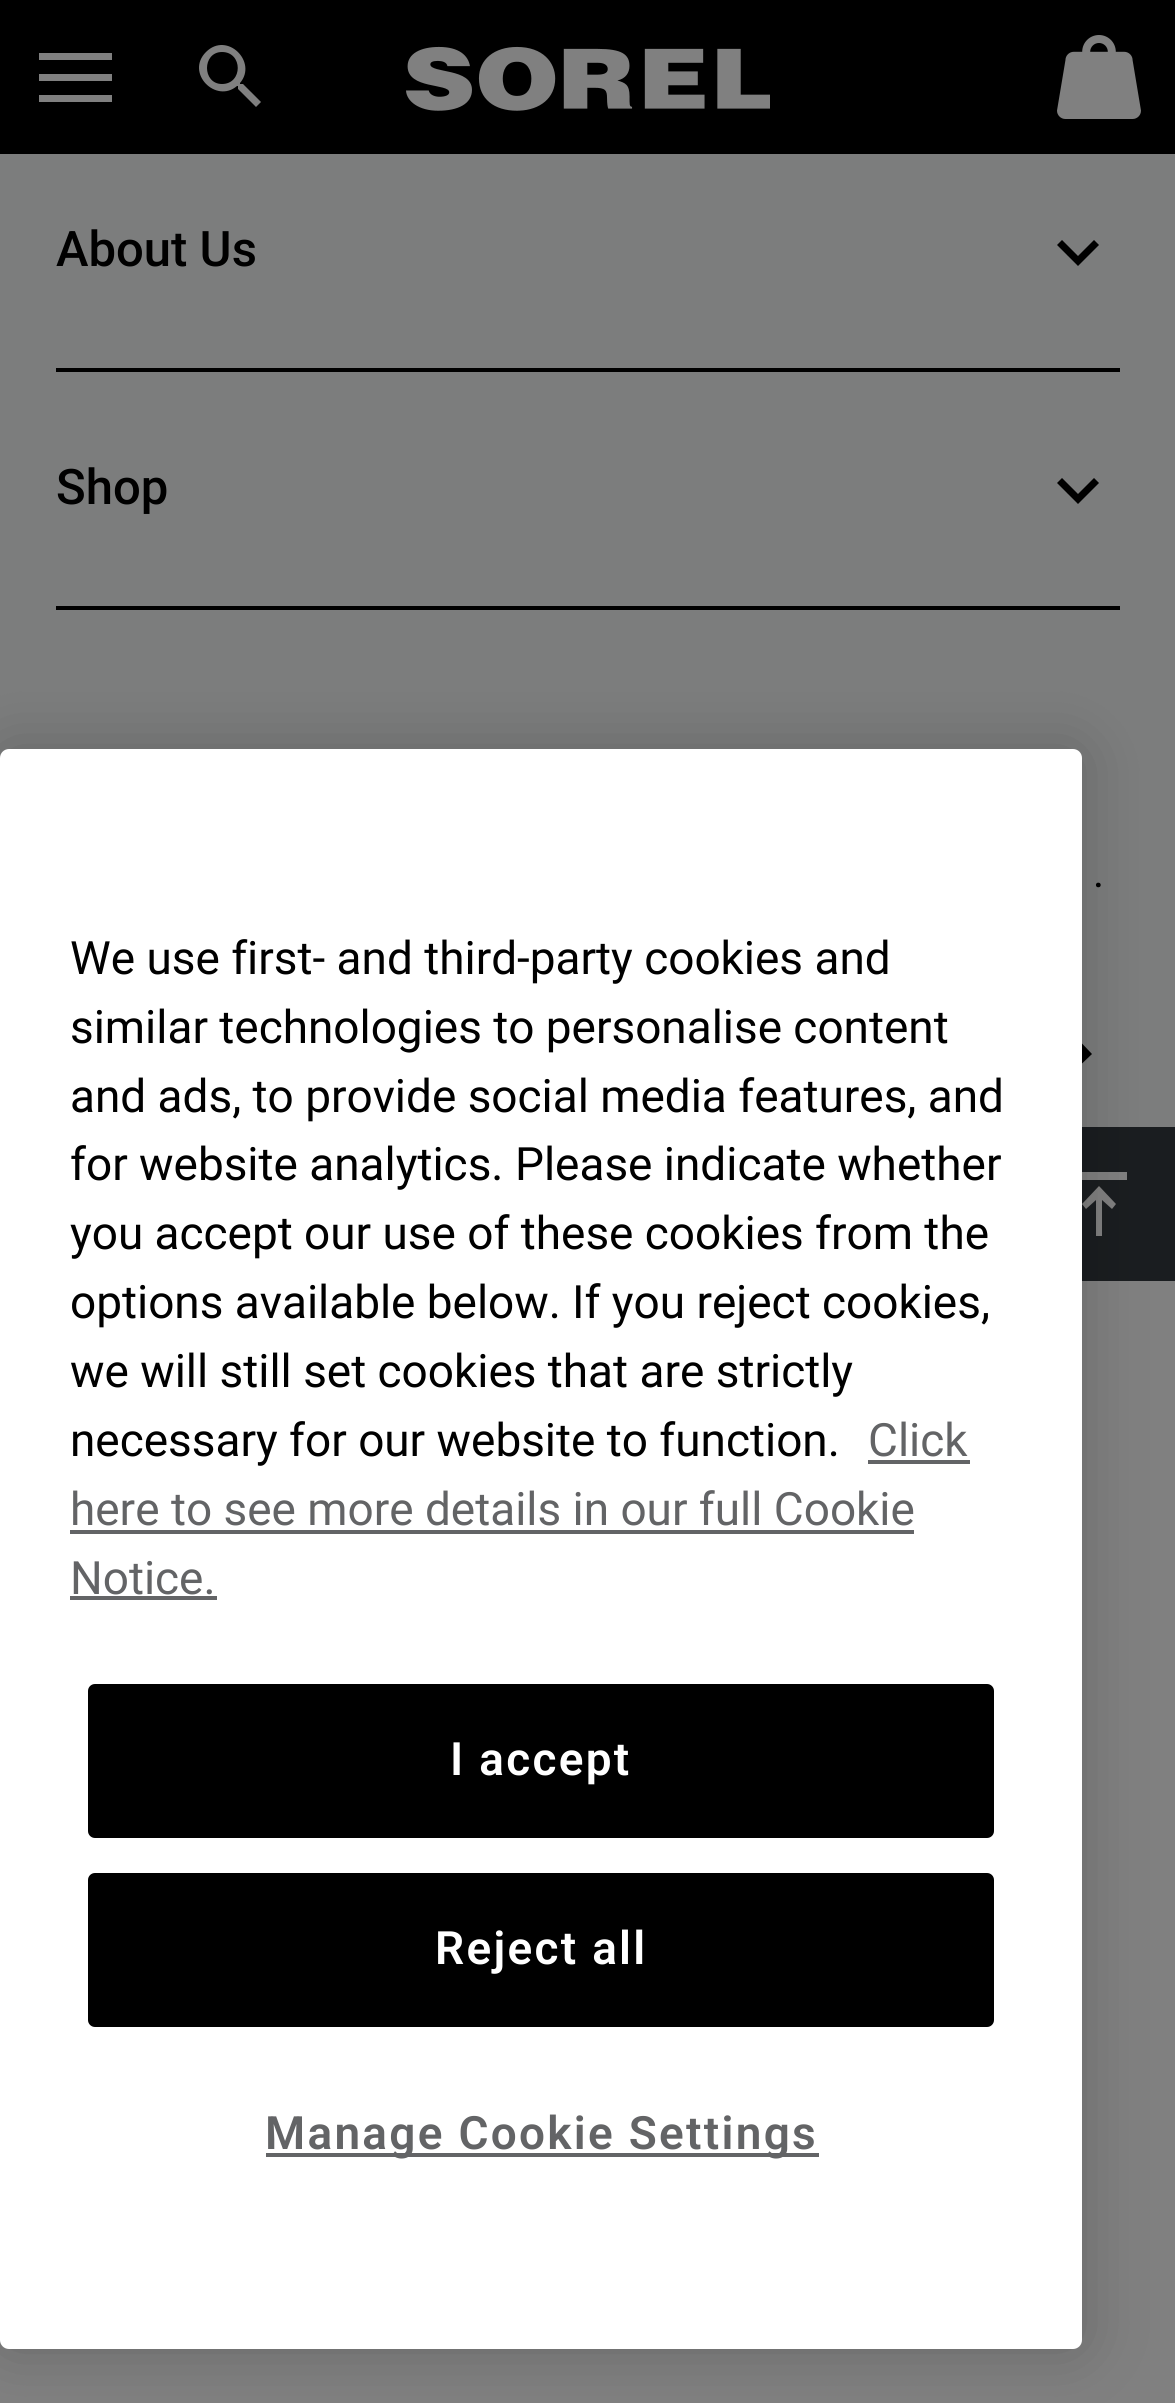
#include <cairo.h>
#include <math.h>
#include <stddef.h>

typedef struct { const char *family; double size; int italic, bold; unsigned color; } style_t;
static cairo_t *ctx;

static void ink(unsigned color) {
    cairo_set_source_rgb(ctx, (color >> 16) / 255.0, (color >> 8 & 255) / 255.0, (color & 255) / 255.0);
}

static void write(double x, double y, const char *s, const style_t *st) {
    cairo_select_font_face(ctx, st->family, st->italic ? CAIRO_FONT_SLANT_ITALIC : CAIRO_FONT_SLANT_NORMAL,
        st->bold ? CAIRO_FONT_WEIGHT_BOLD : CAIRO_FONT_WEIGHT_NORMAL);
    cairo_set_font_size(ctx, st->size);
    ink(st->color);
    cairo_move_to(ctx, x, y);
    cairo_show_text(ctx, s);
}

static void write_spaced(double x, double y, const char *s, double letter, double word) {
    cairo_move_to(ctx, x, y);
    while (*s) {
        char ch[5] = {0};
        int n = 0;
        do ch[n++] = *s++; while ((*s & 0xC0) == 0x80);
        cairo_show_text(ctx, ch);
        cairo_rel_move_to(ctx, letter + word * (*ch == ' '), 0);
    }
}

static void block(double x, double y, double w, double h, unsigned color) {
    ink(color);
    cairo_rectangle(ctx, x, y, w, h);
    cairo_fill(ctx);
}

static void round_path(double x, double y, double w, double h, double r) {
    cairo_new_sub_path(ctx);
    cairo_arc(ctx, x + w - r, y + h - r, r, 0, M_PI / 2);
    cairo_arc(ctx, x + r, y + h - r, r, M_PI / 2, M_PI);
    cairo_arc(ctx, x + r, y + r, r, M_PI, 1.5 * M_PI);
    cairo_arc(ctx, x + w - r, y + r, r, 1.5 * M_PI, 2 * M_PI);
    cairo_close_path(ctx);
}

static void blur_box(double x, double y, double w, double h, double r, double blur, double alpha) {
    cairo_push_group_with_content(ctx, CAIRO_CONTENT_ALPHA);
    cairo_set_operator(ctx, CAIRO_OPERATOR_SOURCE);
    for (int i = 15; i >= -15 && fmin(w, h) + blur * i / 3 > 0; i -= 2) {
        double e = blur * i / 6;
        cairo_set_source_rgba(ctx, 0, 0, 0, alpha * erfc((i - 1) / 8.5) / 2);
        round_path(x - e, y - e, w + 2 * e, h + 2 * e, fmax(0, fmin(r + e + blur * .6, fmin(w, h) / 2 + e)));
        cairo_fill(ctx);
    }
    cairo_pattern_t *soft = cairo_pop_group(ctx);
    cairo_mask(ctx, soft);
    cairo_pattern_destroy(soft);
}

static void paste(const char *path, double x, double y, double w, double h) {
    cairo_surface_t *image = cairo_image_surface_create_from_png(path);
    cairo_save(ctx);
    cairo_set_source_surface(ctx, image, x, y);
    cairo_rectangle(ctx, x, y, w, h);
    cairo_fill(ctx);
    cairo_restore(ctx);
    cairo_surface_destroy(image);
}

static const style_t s1 = {"Roboto Medium", 49, 0, 0, 0x000000};
static const style_t s2 = {"Roboto", 42, 0, 0, 0x000000};
static const style_t s3 = {"Roboto", 45.9, 0, 0, 0x000000};
static const style_t s4 = {"Roboto", 45.9, 0, 0, 0x636466};

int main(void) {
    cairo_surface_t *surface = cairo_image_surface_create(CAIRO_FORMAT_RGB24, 1175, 2403);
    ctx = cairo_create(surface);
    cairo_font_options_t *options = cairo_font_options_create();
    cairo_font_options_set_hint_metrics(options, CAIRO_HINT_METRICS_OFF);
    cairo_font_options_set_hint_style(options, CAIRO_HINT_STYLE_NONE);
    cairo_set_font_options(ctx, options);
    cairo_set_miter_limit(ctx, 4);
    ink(0x7c7d7d);
    cairo_paint(ctx);
    block(0, 0, 1175, 154, 0x000000);
    block(39, 53, 73, 7, 0x808080);
    block(39, 74, 73, 7, 0x808080);
    block(39, 95, 73, 7, 0x808080);
    cairo_new_path(ctx);
    cairo_move_to(ctx, 243, 84);
    cairo_line_to(ctx, 240, 84);
    cairo_line_to(ctx, 240, 83);
    cairo_curve_to(ctx, 258, 62, 227, 31, 206, 52);
    cairo_curve_to(ctx, 185, 73, 216, 104, 237, 86);
    cairo_line_to(ctx, 238, 86);
    cairo_line_to(ctx, 238, 89);
    cairo_line_to(ctx, 256, 107);
    cairo_line_to(ctx, 261, 102);
    cairo_close_path(ctx);
    cairo_move_to(ctx, 222, 84);
    cairo_curve_to(ctx, 202, 84, 202, 52, 222, 52);
    cairo_curve_to(ctx, 243, 52, 243, 84, 222, 84);
    cairo_close_path(ctx);
    cairo_fill(ctx);
    paste("pic1.png", 406, 46, 364, 65);
    paste("pic2.png", 1057, 35, 84, 84);
    block(56, 368, 1064, 4, 0x000000);
    write(56, 266, "About Us", &s1);
    cairo_new_path(ctx);
    cairo_move_to(ctx, 1094, 240);
    cairo_line_to(ctx, 1078, 256);
    cairo_line_to(ctx, 1062, 240);
    cairo_line_to(ctx, 1057, 245);
    cairo_line_to(ctx, 1078, 266);
    cairo_line_to(ctx, 1099, 245);
    cairo_close_path(ctx);
    cairo_fill(ctx);
    block(56, 606, 1064, 4, 0x000000);
    write(56, 504, "Shop", &s1);
    cairo_new_path(ctx);
    cairo_move_to(ctx, 1094, 478);
    cairo_line_to(ctx, 1078, 494);
    cairo_line_to(ctx, 1062, 478);
    cairo_line_to(ctx, 1057, 483);
    cairo_line_to(ctx, 1078, 504);
    cairo_line_to(ctx, 1099, 483);
    cairo_close_path(ctx);
    cairo_fill(ctx);
    write(1093, 887, ".", &s2);
    cairo_new_path(ctx);
    cairo_move_to(ctx, 1071, 1032);
    cairo_line_to(ctx, 1066, 1037);
    cairo_line_to(ctx, 1082, 1054);
    cairo_line_to(ctx, 1066, 1070);
    cairo_line_to(ctx, 1071, 1074);
    cairo_line_to(ctx, 1092, 1054);
    cairo_close_path(ctx);
    cairo_fill(ctx);
    block(1082, 1127, 93, 154, 0x1a1d20);
    ink(0x808080);
    cairo_new_path(ctx);
    cairo_move_to(ctx, 1071, 1180);
    cairo_line_to(ctx, 1071, 1172);
    cairo_line_to(ctx, 1127, 1172);
    cairo_line_to(ctx, 1127, 1180);
    cairo_close_path(ctx);
    cairo_move_to(ctx, 1096, 1236);
    cairo_line_to(ctx, 1096, 1200);
    cairo_line_to(ctx, 1086, 1209);
    cairo_line_to(ctx, 1082, 1204);
    cairo_line_to(ctx, 1099, 1186);
    cairo_line_to(ctx, 1116, 1204);
    cairo_line_to(ctx, 1112, 1209);
    cairo_line_to(ctx, 1102, 1200);
    cairo_line_to(ctx, 1102, 1236);
    cairo_close_path(ctx);
    cairo_fill(ctx);
    block(0, 1281, 1175, 1122, 0x808080);
    ink(0x000000);
    blur_box(0, 749, 1082, 1600, 9, 31.5, 0.2);
    ink(0xffffff);
    round_path(0, 749, 1082, 1600, 9);
    cairo_fill(ctx);
    write(70, 974, "We use first- and third-party cookies and", &s3);
    write(70, 1043, "similar technologies to personalise content", &s3);
    write(70, 1112, "and ads, to provide social media features, and", &s3);
    write(70, 1180, "for website analytics.", &s3);
    write(515, 1180, "Please indicate whether", &s3);
    write(70, 1249, "you accept our use of these cookies from the", &s3);
    write(70, 1318, "options available below.", &s3);
    write(572, 1318, "If you reject cookies,", &s3);
    write(70, 1387, "we will still set cookies that are strictly", &s3);
    write(70, 1456, "necessary for our website to function.", &s3);
    write(868, 1456, "Click", &s4);
    block(868, 1460, 102, 4, 0x636466);
    write(70, 1525, "here to see more details in our full Cookie", &s4);
    block(70, 1530, 844, 4, 0x636466);
    write(70, 1594, "Notice.", &s4);
    block(70, 1596, 147, 4, 0x636466);
    ink(0x000000);
    round_path(90, 1686, 902, 150, 5);
    cairo_fill_preserve(ctx);
    cairo_set_line_width(ctx, 4);
    cairo_stroke(ctx);
    cairo_select_font_face(ctx, "Roboto SemiBold", CAIRO_FONT_SLANT_NORMAL, CAIRO_FONT_WEIGHT_NORMAL);
    ink(0xffffff);
    write_spaced(450, 1775, "I accept", 2.3, 0);
    ink(0x000000);
    round_path(90, 1875, 902, 150, 5);
    cairo_fill_preserve(ctx);
    cairo_stroke(ctx);
    ink(0xffffff);
    write_spaced(435, 1964, "Reject all", 2.3, 0);
    block(266, 2153, 553, 4, 0x636466);
    write_spaced(265, 2149, "Manage Cookie Settings", 2.3, 0);
    cairo_surface_write_to_png(surface, "screenshot.png");
    cairo_font_options_destroy(options);
    cairo_destroy(ctx);
    cairo_surface_destroy(surface);
    return 0;
}
